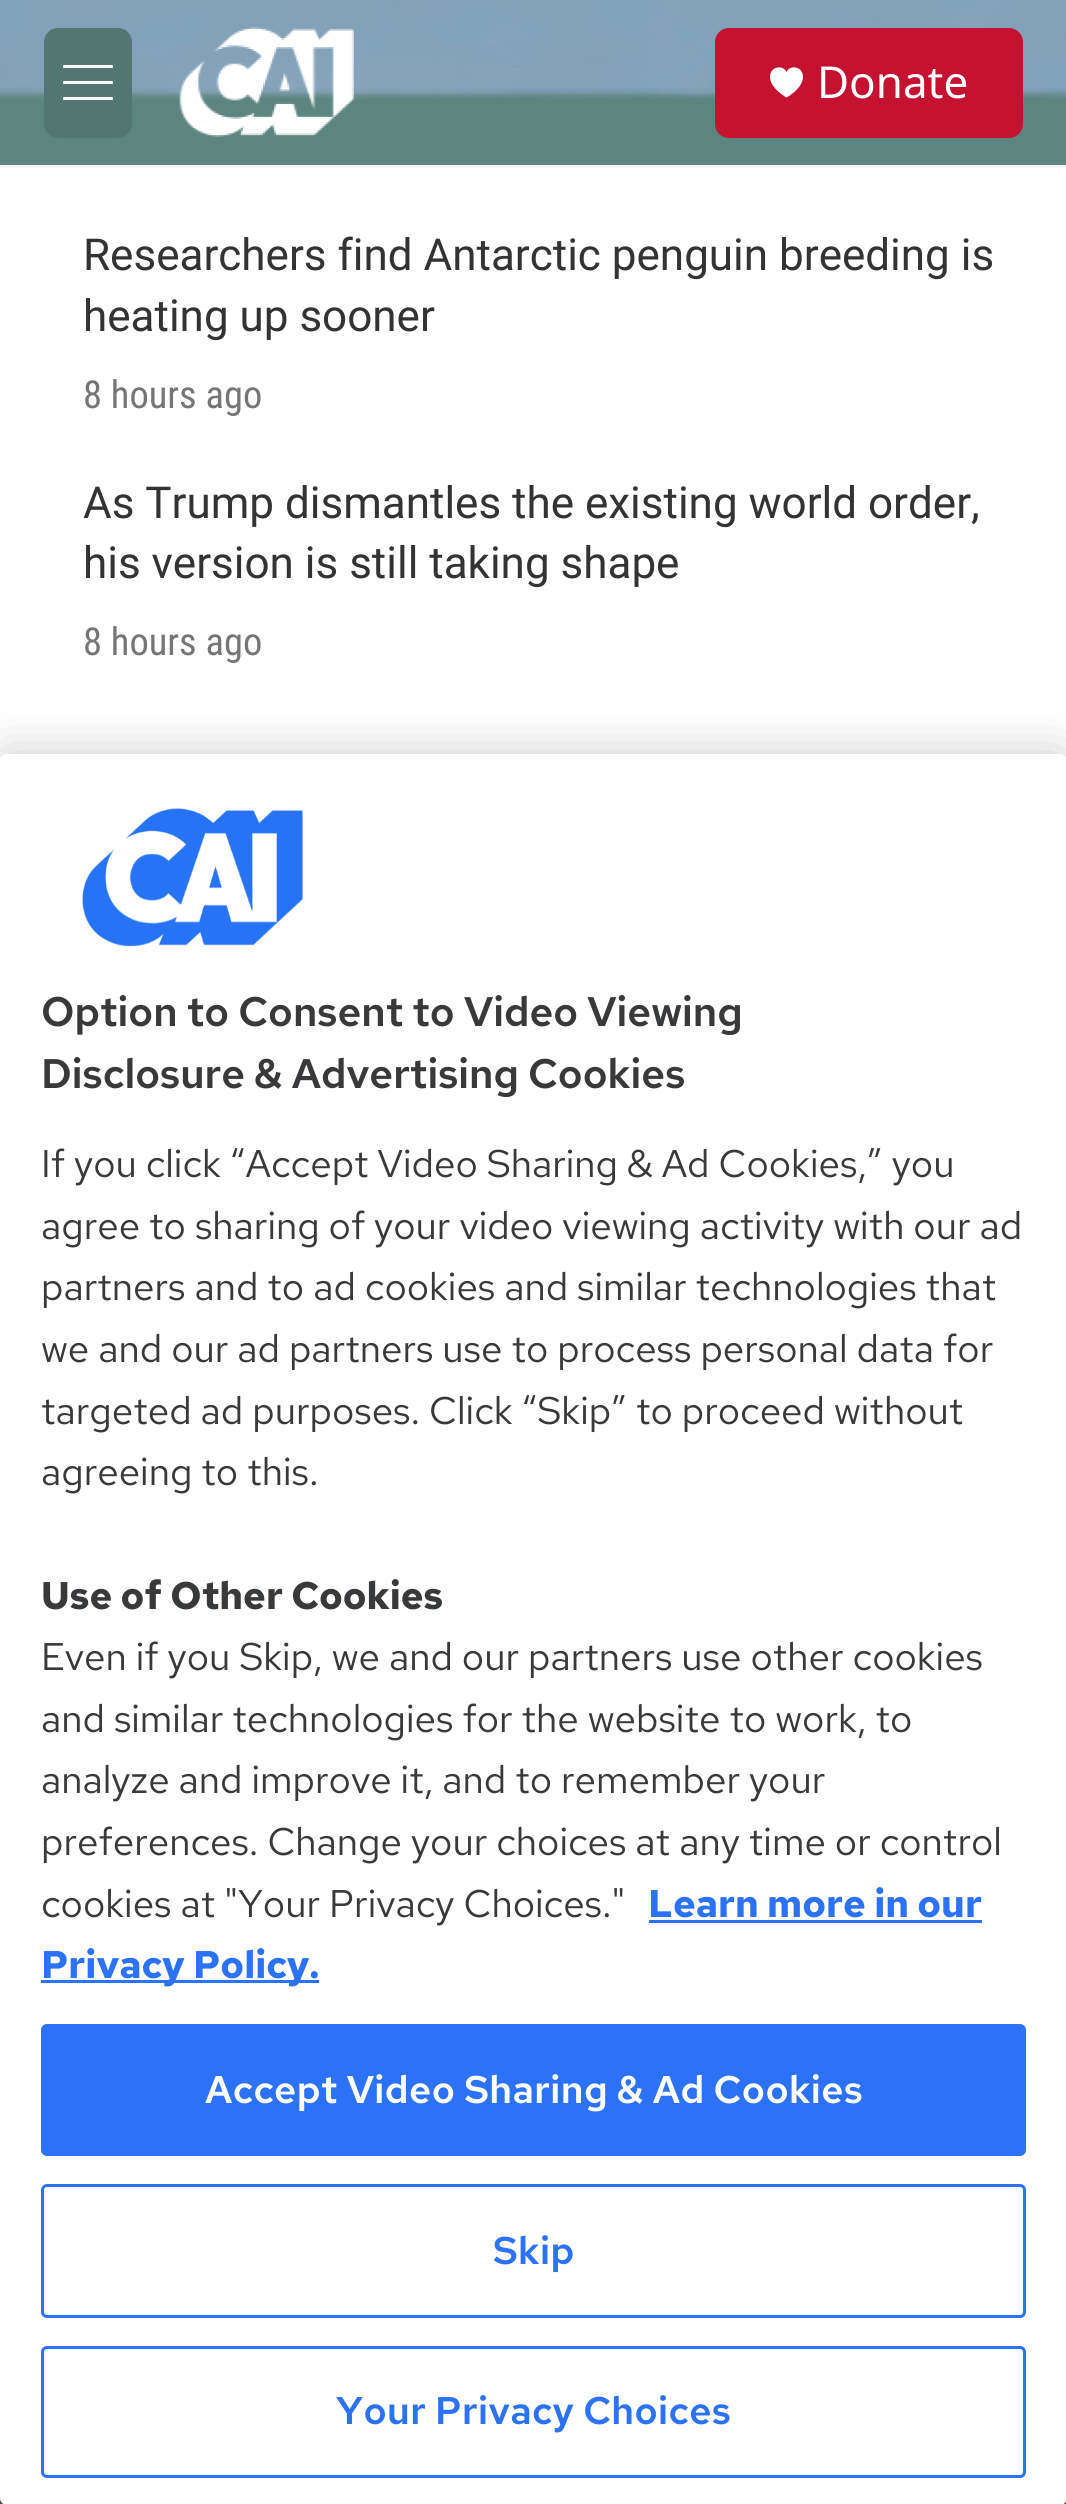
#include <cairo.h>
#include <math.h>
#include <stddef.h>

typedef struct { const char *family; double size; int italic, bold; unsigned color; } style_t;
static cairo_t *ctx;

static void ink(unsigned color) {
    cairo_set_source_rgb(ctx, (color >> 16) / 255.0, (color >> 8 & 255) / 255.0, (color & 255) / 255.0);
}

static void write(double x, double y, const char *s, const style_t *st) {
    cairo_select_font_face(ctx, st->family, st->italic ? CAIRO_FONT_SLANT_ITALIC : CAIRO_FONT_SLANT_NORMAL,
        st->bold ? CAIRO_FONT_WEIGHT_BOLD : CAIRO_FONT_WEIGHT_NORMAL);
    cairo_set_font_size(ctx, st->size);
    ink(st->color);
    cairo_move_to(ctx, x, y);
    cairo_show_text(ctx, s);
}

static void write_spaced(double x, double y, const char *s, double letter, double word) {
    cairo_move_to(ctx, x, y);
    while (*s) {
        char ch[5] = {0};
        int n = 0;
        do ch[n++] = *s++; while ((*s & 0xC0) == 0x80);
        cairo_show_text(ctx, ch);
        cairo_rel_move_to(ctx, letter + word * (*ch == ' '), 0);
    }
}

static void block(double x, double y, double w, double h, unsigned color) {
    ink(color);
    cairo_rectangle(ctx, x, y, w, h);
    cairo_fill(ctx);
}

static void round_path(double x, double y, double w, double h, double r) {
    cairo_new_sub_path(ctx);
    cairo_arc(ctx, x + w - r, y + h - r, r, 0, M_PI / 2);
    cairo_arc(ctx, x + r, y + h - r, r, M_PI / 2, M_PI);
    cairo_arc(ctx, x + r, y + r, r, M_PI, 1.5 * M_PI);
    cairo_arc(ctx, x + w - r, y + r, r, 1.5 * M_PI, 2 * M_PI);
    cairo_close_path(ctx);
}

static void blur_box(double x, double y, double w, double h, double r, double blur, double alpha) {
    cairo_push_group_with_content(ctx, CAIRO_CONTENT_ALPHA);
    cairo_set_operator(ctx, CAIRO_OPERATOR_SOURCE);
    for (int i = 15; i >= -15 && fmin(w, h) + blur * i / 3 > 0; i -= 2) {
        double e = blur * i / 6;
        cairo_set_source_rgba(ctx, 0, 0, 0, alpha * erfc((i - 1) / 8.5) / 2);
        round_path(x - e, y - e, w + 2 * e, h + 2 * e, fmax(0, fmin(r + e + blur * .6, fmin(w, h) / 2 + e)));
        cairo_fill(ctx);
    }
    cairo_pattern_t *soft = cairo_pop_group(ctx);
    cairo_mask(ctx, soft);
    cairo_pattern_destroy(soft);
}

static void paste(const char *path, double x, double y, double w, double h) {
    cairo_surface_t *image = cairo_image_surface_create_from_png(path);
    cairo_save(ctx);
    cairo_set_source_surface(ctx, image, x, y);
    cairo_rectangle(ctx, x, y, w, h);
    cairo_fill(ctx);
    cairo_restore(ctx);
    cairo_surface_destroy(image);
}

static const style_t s1 = {"Noto Sans", 44, 0, 0, 0xffffff};
static const style_t s2 = {"Roboto", 44, 0, 0, 0x333333};
static const style_t s3 = {"Roboto Condensed", 38.5, 0, 0, 0x767676};
static const style_t s4 = {"Red Hat Text SemiBold", 41.25, 0, 0, 0x38393b};
static const style_t s5 = {"Red Hat Text", 38.5, 0, 0, 0x38393b};
static const style_t s6 = {"Red Hat Text", 38.5, 0, 1, 0x38393b};
static const style_t s7 = {"Red Hat Text", 38.5, 0, 1, 0x2b72f6};

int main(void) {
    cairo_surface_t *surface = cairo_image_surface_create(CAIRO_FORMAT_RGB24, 1066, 2504);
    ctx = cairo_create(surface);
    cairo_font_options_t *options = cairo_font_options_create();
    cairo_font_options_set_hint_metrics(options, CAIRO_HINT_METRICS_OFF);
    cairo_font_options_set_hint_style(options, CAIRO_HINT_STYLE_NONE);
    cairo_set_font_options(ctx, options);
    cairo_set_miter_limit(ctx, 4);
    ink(0xffffff);
    cairo_paint(ctx);
    block(0, 100, 1066, 65, 0x5c857f);
    block(0, 165, 1066, 3, 0xf5f5f5);
    paste("pic1.png", 0, 0, 1066, 100);
    ink(0x527772);
    round_path(44, 28, 88, 110, 14);
    cairo_fill(ctx);
    ink(0xffffff);
    cairo_set_fill_rule(ctx, CAIRO_FILL_RULE_EVEN_ODD);
    cairo_new_path(ctx);
    cairo_move_to(ctx, 63, 84);
    cairo_line_to(ctx, 63, 81);
    cairo_line_to(ctx, 113, 81);
    cairo_line_to(ctx, 113, 84);
    cairo_close_path(ctx);
    cairo_move_to(ctx, 63, 68);
    cairo_line_to(ctx, 63, 65);
    cairo_line_to(ctx, 113, 65);
    cairo_line_to(ctx, 113, 68);
    cairo_close_path(ctx);
    cairo_move_to(ctx, 63, 100);
    cairo_line_to(ctx, 63, 97);
    cairo_line_to(ctx, 113, 97);
    cairo_line_to(ctx, 113, 100);
    cairo_close_path(ctx);
    cairo_fill(ctx);
    paste("pic2.png", 179, 27, 175, 110);
    ink(0xc41230);
    round_path(715, 28, 308, 110, 14);
    cairo_fill(ctx);
    paste("pic3.png", 770, 67, 33, 31);
    write(817, 98, "Donate", &s1);
    block(0, 2498, 4, 6, 0x4c565f);
    block(1063, 2501, 3, 3, 0x3d454c);
    write(83, 270, "Researchers find Antarctic penguin breeding is", &s2);
    write(83, 331, "heating up sooner", &s2);
    write(83, 408, "8 hours ago", &s3);
    write(83, 518, "As Trump dismantles the existing world order,", &s2);
    write(83, 578, "his version is still taking shape", &s2);
    write(83, 655, "8 hours ago", &s3);
    ink(0x000000);
    blur_box(0, 754, 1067, 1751, 7, 25, 0.2);
    ink(0xffffff);
    round_path(0, 754, 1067, 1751, 7);
    cairo_fill(ctx);
    paste("pic4.png", 82, 808, 221, 139);
    write(41, 1026, "Option to Consent to Video Viewing", &s4);
    write(41, 1088, "Disclosure & Advertising Cookies", &s4);
    write(41, 1177, "If you click “Accept Video Sharing & Ad Cookies,” you", &s5);
    write(41, 1239, "agree to sharing of your video viewing activity with our ad", &s5);
    write(41, 1300, "partners and to ad cookies and similar technologies that", &s5);
    write(41, 1362, "we and our ad partners use to process personal data for", &s5);
    write(41, 1424, "targeted ad purposes. Click “Skip” to proceed without", &s5);
    write(41, 1485, "agreeing to this.", &s5);
    write(41, 1609, "Use of Other Cookies", &s6);
    write(41, 1670, "Even if you Skip, we and our partners use other cookies", &s5);
    write(41, 1732, "and similar technologies for the website to work, to", &s5);
    write(41, 1793, "analyze and improve it, and to remember your", &s5);
    write(41, 1855, "preferences. Change your choices at any time or control", &s5);
    write(41, 1917, "cookies at \"Your Privacy Choices.\"", &s5);
    write(648, 1917, "Learn more in our", &s7);
    block(649, 1920, 333, 3, 0x2b72f6);
    block(41, 1980, 278, 3, 0x2b72f6);
    write(41, 1978, "Privacy Policy.", &s7);
    round_path(42.5, 2025.5, 982, 129, 4.5);
    cairo_fill_preserve(ctx);
    cairo_set_line_width(ctx, 3);
    cairo_stroke(ctx);
    cairo_select_font_face(ctx, "Red Hat Text SemiBold", CAIRO_FONT_SLANT_NORMAL, CAIRO_FONT_WEIGHT_NORMAL);
    ink(0xffffff);
    write_spaced(205, 2103, "Accept Video Sharing & Ad Cookies", 0.4, 0);
    round_path(42.5, 2185.5, 982, 131, 4.5);
    ink(0x2b72f6);
    cairo_stroke(ctx);
    write_spaced(493, 2264, "Skip", 0.4, 0);
    round_path(42.5, 2347.5, 982, 129, 4.5);
    cairo_stroke(ctx);
    write_spaced(336, 2424, "Your Privacy Choices", 0.4, 0);
    cairo_surface_write_to_png(surface, "screenshot.png");
    cairo_font_options_destroy(options);
    cairo_destroy(ctx);
    cairo_surface_destroy(surface);
    return 0;
}
